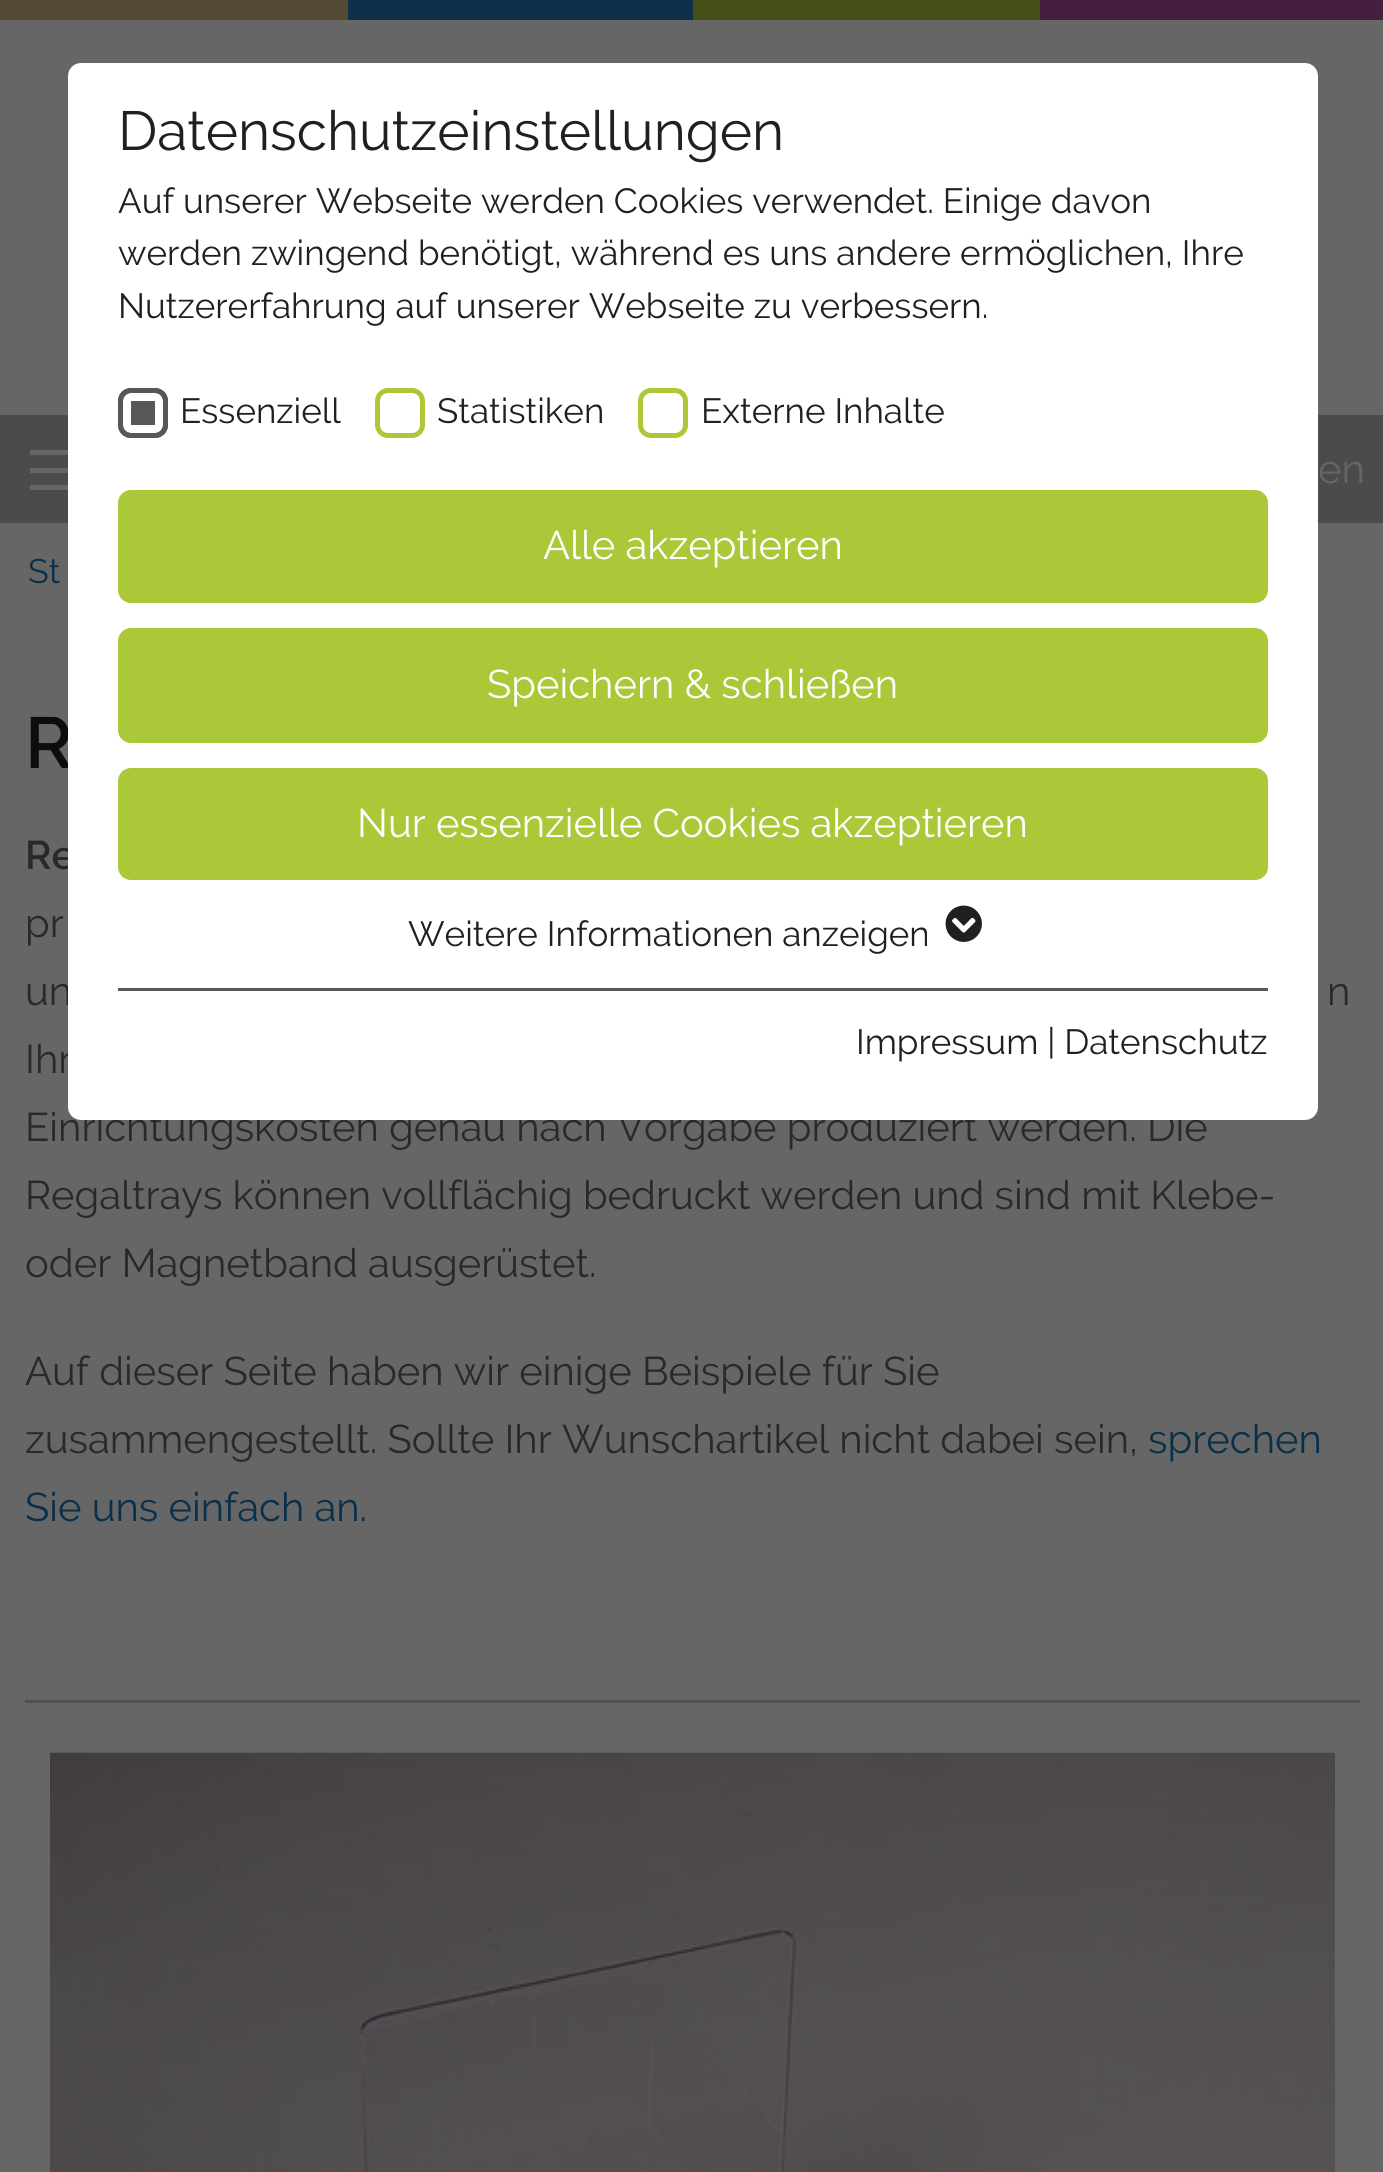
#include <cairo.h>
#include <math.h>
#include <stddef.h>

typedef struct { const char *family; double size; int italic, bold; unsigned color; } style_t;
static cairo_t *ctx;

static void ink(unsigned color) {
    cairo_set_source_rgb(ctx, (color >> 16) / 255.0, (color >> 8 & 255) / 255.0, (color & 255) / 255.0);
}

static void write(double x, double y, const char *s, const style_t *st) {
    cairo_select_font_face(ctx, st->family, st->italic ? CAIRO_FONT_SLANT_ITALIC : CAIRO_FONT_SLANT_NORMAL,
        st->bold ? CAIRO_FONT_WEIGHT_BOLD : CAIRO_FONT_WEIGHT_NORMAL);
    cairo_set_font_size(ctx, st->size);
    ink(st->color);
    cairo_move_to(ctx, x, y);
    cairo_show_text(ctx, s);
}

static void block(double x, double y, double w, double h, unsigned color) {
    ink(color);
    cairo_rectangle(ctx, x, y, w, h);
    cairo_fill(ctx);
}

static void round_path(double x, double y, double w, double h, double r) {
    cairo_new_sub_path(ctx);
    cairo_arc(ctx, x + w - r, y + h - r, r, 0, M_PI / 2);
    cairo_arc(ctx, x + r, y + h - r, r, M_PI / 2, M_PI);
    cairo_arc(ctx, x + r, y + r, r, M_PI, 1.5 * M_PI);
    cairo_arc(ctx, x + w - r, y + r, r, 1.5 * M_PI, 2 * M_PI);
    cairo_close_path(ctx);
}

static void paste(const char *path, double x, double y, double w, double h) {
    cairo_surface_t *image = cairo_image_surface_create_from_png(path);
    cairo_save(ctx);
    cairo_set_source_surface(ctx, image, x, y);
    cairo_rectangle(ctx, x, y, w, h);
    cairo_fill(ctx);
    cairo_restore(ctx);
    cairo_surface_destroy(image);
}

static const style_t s1 = {"Raleway SemiBold", 72, 0, 0, 0x0d0d0d};
static const style_t s2 = {"Raleway SemiBold", 40, 0, 0, 0x292929};
static const style_t s3 = {"Raleway", 40, 0, 0, 0x292929};
static const style_t s4 = {"Raleway", 55, 0, 0, 0x202020};
static const style_t s5 = {"Raleway", 35, 0, 0, 0x202020};
static const style_t s6 = {"Raleway", 40, 0, 0, 0xffffff};
static const style_t s7 = {"Raleway", 40, 0, 0, 0x666666};
static const style_t s8 = {"Raleway", 34, 0, 0, 0x09304a};
static const style_t s9 = {"Raleway", 40, 0, 0, 0x09304a};

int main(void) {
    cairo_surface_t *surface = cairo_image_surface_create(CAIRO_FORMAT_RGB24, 1383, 2172);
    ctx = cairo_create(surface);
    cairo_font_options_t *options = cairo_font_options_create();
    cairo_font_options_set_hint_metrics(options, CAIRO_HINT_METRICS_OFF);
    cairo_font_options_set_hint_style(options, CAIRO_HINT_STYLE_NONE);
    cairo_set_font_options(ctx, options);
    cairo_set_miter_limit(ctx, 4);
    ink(0x666666);
    cairo_paint(ctx);
    block(0, 415, 1383, 108, 0x4b4b4b);
    write(25, 768, "R", &s1);
    write(25, 869, "Re", &s2);
    write(25, 1005, "un", &s3);
    write(25, 1073, "Ihr", &s3);
    write(25, 1141, "Einrichtungskosten genau nach Vorgabe produziert werden. Die", &s3);
    ink(0xffffff);
    round_path(68, 63, 1250, 1057, 13);
    cairo_fill(ctx);
    write(118, 150, "Datenschutzeinstellungen", &s4);
    write(118, 213, "Auf unserer Webseite werden Cookies verwendet. Einige davon", &s5);
    write(118, 265, "werden zwingend benötigt, während es uns andere ermöglichen, Ihre", &s5);
    write(118, 318, "Nutzererfahrung auf unserer Webseite zu verbessern.", &s5);
    ink(0x575757);
    round_path(118, 388, 50, 50, 13);
    cairo_fill(ctx);
    round_path(127, 397, 32, 32, 4);
    ink(0xffffff);
    cairo_set_line_width(ctx, 8);
    cairo_stroke(ctx);
    round_path(120.5, 390.5, 45, 45, 10.5);
    ink(0x575757);
    cairo_set_line_width(ctx, 5);
    cairo_stroke(ctx);
    write(180, 423, "Essenziell", &s5);
    round_path(377.5, 390.5, 45, 45, 10.5);
    ink(0xaac837);
    cairo_stroke(ctx);
    write(437, 423, "Statistiken", &s5);
    round_path(640.5, 390.5, 45, 45, 10.5);
    ink(0xaac837);
    cairo_stroke(ctx);
    write(701, 423, "Externe Inhalte", &s5);
    ink(0xaac837);
    round_path(118, 490, 1150, 113, 13);
    cairo_fill(ctx);
    write(543, 559, "Alle akzeptieren", &s6);
    ink(0xaac837);
    round_path(118, 628, 1150, 115, 13);
    cairo_fill(ctx);
    write(487, 698, "Speichern & schließen", &s6);
    ink(0xaac837);
    round_path(118, 768, 1150, 112, 13);
    cairo_fill(ctx);
    write(357, 837, "Nur essenzielle Cookies akzeptieren", &s6);
    write(408, 946, "Weitere Informationen anzeigen", &s5);
    paste("pic1.png", 945, 905, 37, 37);
    block(118, 988, 1150, 3, 0x575757);
    write(856, 1054, "Impressum | Datenschutz", &s5);
    block(0, 0, 348, 20, 0x524a32);
    block(348, 0, 345, 20, 0x0e3048);
    block(693, 0, 347, 20, 0x445016);
    block(1040, 0, 343, 20, 0x44203e);
    block(30, 485, 38, 5, 0x666666);
    block(30, 468, 38, 5, 0x666666);
    block(30, 450, 38, 5, 0x666666);
    write(1318, 483, "en", &s7);
    write(28, 583, "St", &s8);
    write(25, 937, "pr", &s3);
    write(1327, 1005, "n", &s3);
    write(25, 1209, "Regaltrays können vollflächig bedruckt werden und sind mit Klebe-", &s3);
    write(25, 1277, "oder Magnetband ausgerüstet.", &s3);
    write(25, 1385, "Auf dieser Seite haben wir einige Beispiele für Sie", &s3);
    write(25, 1453, "zusammengestellt. Sollte Ihr Wunschartikel nicht dabei sein,", &s3);
    write(1148, 1453, "sprechen", &s9);
    write(25, 1521, "Sie uns einfach an.", &s9);
    block(25, 1700, 1335, 3, 0x515151);
    paste("pic2.png", 50, 1752, 1285, 420);
    cairo_surface_write_to_png(surface, "screenshot.png");
    cairo_font_options_destroy(options);
    cairo_destroy(ctx);
    cairo_surface_destroy(surface);
    return 0;
}
